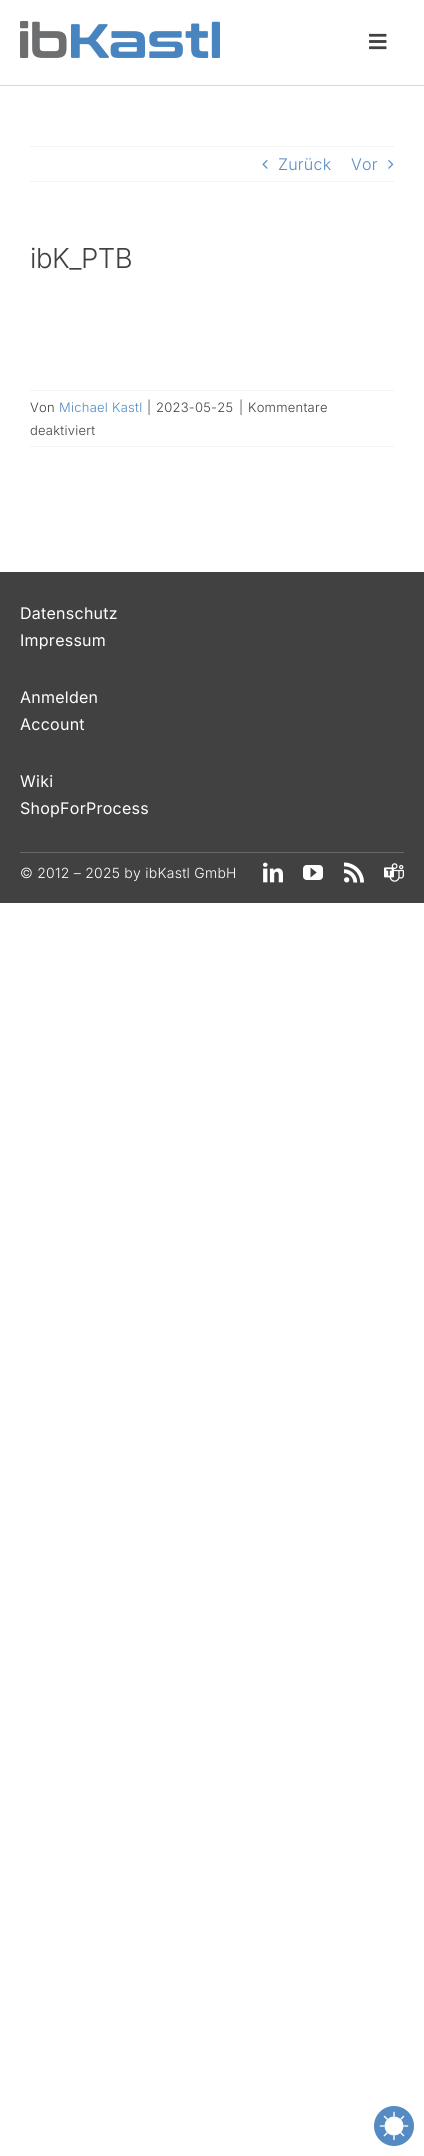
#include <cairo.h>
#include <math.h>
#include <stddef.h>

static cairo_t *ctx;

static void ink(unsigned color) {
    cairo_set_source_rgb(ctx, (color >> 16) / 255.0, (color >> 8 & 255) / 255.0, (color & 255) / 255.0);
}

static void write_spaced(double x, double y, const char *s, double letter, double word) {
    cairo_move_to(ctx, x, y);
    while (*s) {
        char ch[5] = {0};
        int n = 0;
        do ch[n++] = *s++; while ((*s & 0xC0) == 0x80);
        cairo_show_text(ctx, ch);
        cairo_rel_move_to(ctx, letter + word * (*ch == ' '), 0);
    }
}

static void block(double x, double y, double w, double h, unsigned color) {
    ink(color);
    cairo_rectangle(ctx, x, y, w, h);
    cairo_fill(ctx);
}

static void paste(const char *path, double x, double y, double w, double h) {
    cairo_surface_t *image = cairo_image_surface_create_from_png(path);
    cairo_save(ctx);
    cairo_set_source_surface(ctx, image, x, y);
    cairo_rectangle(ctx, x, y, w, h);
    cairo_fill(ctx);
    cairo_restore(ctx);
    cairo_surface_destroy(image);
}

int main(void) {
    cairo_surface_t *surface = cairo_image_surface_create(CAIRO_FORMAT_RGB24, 424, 2156);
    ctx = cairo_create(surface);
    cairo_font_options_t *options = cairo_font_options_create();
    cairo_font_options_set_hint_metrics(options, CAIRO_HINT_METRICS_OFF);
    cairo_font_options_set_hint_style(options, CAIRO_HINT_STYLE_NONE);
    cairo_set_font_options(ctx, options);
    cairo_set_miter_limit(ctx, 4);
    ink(0xffffff);
    cairo_paint(ctx);
    block(0, 85, 424, 1, 0xd9d9d9);
    paste("pic1.png", 20, 21, 200, 37);
    paste("pic2.png", 369, 33, 18, 17);
    block(30, 146, 364, 1, 0xf2f3f5);
    block(30, 181, 364, 1, 0xf2f3f5);
    paste("pic3.png", 262, 160, 6, 9);
    cairo_select_font_face(ctx, "Inter Light", CAIRO_FONT_SLANT_NORMAL, CAIRO_FONT_WEIGHT_NORMAL);
    cairo_set_font_size(ctx, 16);
    ink(0x558bc2);
    write_spaced(278, 170, "Zurück", 0.25, 0);
    write_spaced(351, 170, "Vor", 0.25, 0);
    paste("pic4.png", 388, 160, 6, 9);
    cairo_set_font_size(ctx, 27.5);
    ink(0x414141);
    write_spaced(30, 268, "ibK_PTB", -0.5, 0);
    block(30, 390, 364, 1, 0xf2f3f5);
    block(30, 446, 364, 1, 0xf2f3f5);
    cairo_set_font_size(ctx, 13);
    ink(0x414141);
    write_spaced(30, 412, "Von", 0.25, 0);
    ink(0x558bc2);
    write_spaced(59, 412, "Michael Kastl", 0.25, 0);
    ink(0x414141);
    write_spaced(147, 412, "|", 0.25, 0);
    write_spaced(156, 412, "2023-05-25", 0.25, 0);
    write_spaced(239, 412, "|", 0.25, 0);
    write_spaced(248, 412, "Kommentare", 0.25, 0);
    write_spaced(30, 435, "deaktiviert", 0.25, 0);
    block(0, 572, 424, 331, 0x414141);
    cairo_select_font_face(ctx, "Inter", CAIRO_FONT_SLANT_NORMAL, CAIRO_FONT_WEIGHT_NORMAL);
    cairo_set_font_size(ctx, 16);
    ink(0xffffff);
    write_spaced(20, 619, "Datenschutz", 0.25, 0);
    write_spaced(20, 646, "Impressum", 0.25, 0);
    write_spaced(20, 703, "Anmelden", 0.25, 0);
    write_spaced(20, 730, "Account", 0.25, 0);
    write_spaced(20, 787, "Wiki", 0.25, 0);
    write_spaced(20, 814, "ShopForProcess", 0.25, 0);
    block(20, 852, 384, 1, 0x676767);
    cairo_select_font_face(ctx, "Inter Light", CAIRO_FONT_SLANT_NORMAL, CAIRO_FONT_WEIGHT_NORMAL);
    cairo_set_font_size(ctx, 14);
    ink(0xffffff);
    write_spaced(20, 878, "© 2012 – 2025 by ibKastl GmbH", 0.25, 0);
    paste("pic5.png", 263, 862, 20, 21);
    paste("pic6.png", 303, 865, 20, 15);
    paste("pic7.png", 344, 862, 20, 21);
    paste("pic8.png", 384, 863, 20, 19);
    ink(0x558bc2);
    cairo_arc(ctx, 394, 2126, 20, 0, 2 * M_PI);
    cairo_fill(ctx);
    paste("pic9.png", 379, 2111, 30, 30);
    cairo_surface_write_to_png(surface, "screenshot.png");
    cairo_font_options_destroy(options);
    cairo_destroy(ctx);
    cairo_surface_destroy(surface);
    return 0;
}
